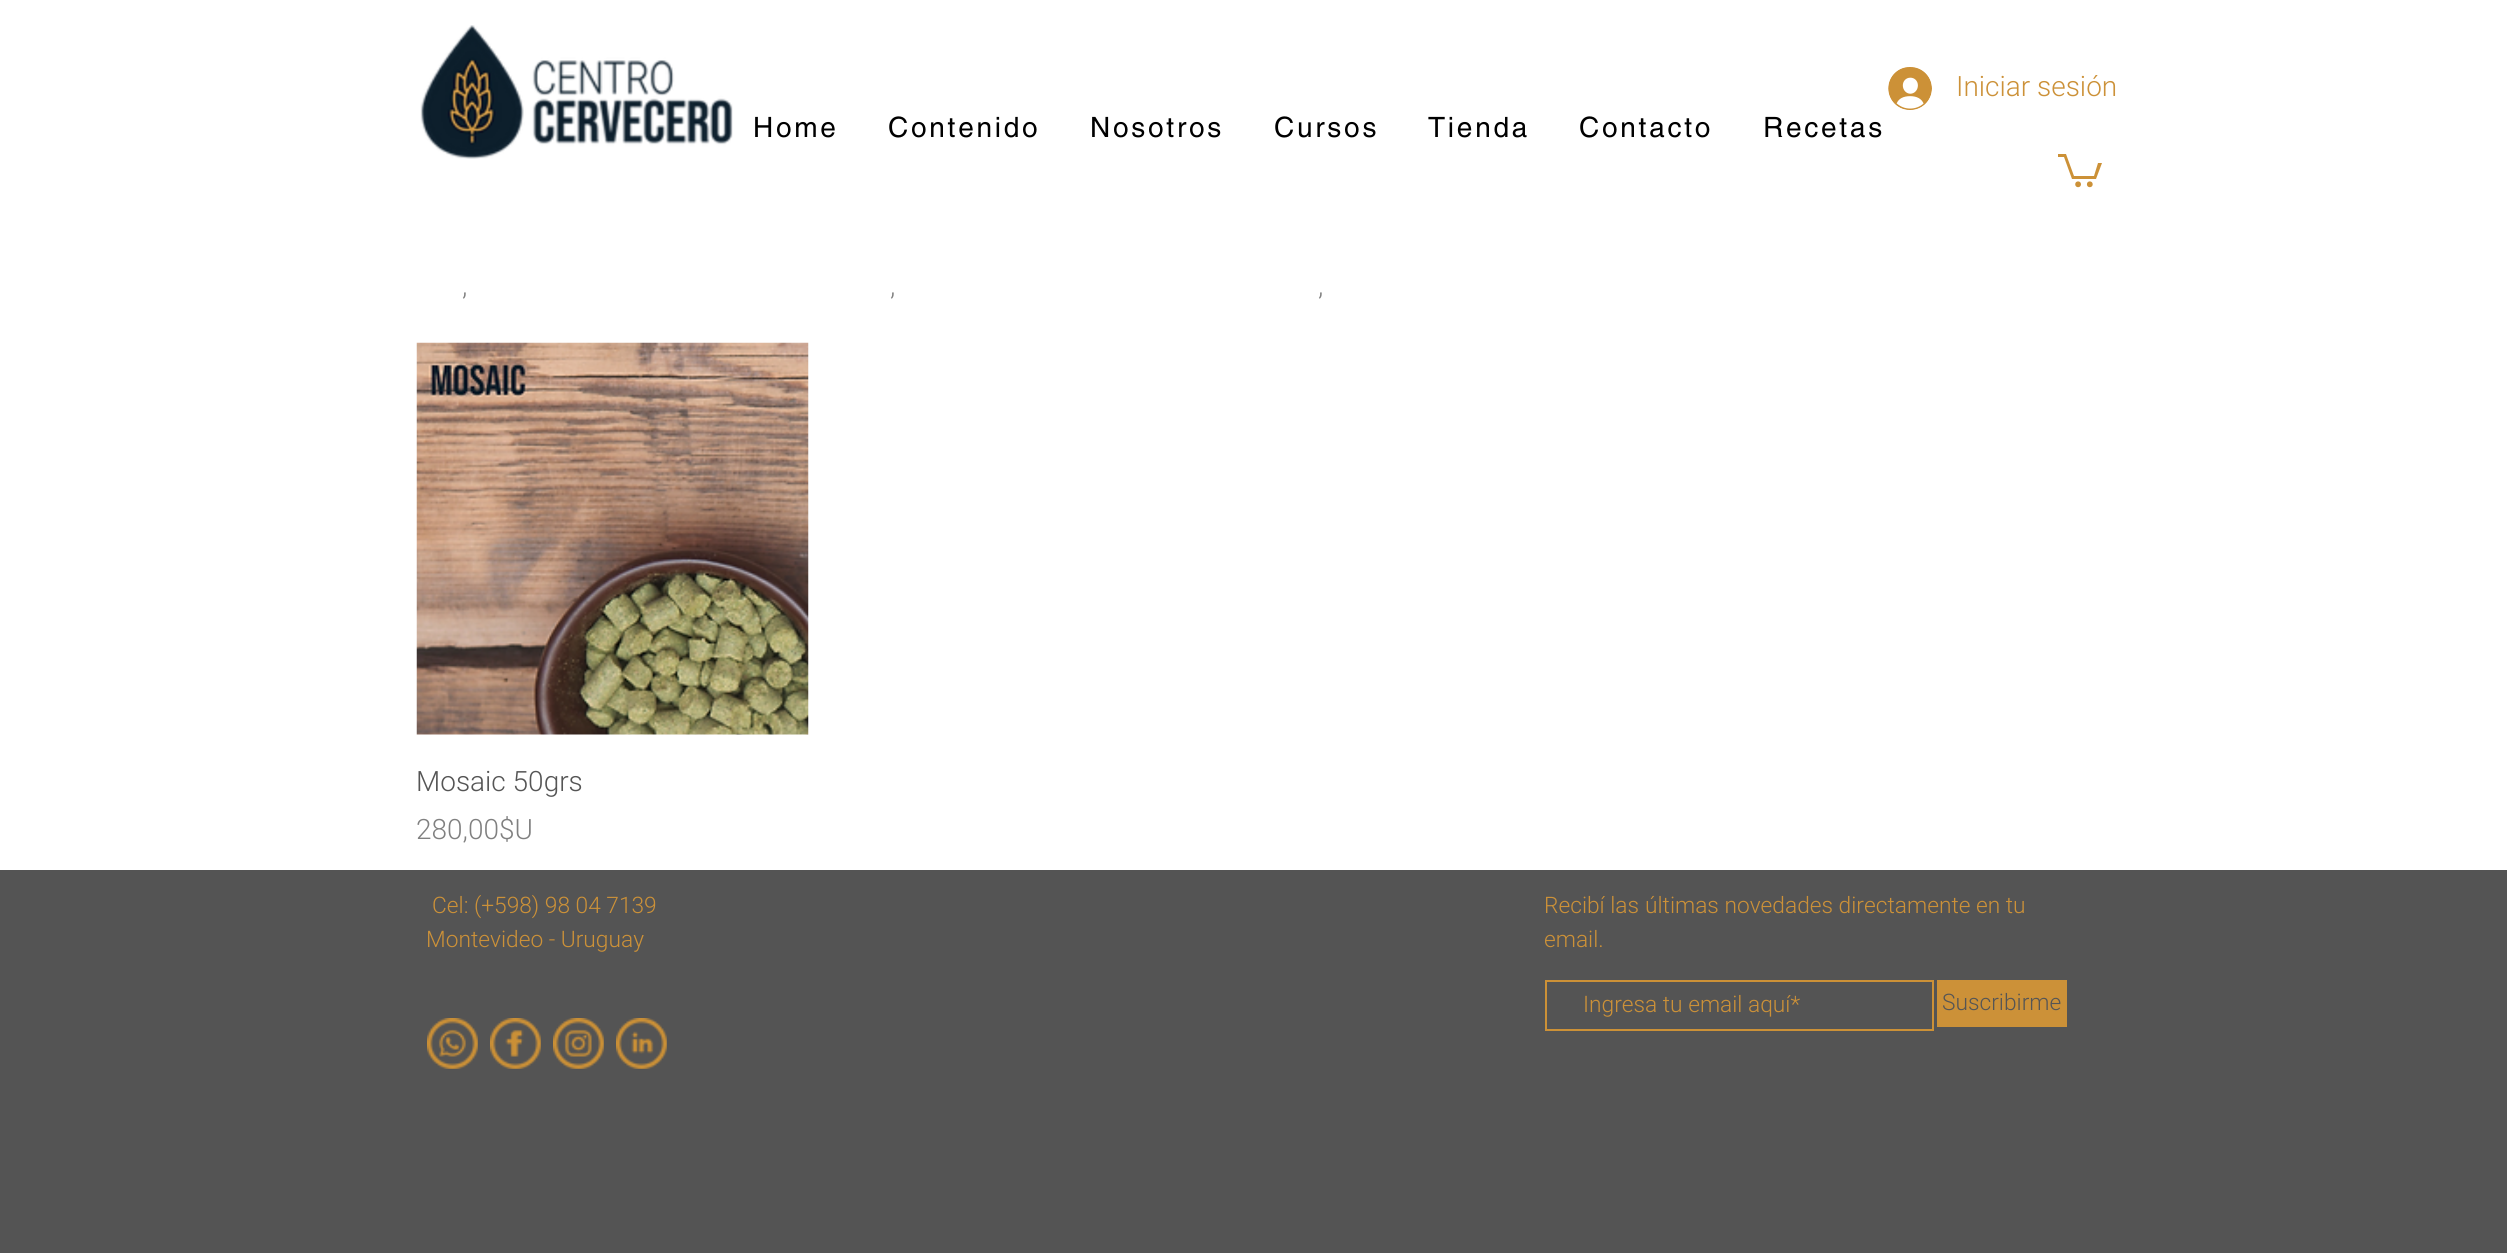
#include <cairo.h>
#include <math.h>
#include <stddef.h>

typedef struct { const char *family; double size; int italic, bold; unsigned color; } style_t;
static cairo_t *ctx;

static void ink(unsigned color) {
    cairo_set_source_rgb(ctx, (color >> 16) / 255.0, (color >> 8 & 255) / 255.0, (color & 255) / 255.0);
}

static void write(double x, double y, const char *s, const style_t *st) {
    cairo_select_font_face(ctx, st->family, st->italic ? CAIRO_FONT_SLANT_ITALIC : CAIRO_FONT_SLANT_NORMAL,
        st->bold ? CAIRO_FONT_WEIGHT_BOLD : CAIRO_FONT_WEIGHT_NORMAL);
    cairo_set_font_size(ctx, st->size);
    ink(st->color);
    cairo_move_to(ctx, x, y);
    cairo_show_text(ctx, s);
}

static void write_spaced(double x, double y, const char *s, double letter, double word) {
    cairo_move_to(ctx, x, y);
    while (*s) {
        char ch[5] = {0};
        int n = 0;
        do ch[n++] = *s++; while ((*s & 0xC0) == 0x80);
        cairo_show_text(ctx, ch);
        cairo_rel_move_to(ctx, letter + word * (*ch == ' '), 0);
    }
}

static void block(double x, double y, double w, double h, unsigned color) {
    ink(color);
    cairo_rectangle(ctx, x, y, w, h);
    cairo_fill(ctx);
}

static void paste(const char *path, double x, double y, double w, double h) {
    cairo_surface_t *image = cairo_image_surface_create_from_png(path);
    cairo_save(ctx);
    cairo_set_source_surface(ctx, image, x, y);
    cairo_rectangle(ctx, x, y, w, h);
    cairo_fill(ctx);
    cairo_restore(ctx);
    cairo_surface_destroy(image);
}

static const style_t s1 = {"Roboto Light", 28, 0, 0, 0xcc9138};
static const style_t s2 = {"Roboto Light", 28, 0, 0, 0x808080};
static const style_t s3 = {"Roboto Light", 28, 0, 0, 0x555555};
static const style_t s4 = {"Roboto Light", 22.75, 0, 0, 0xcc9138};
static const style_t s5 = {"Roboto Light", 22.75, 0, 0, 0x555555};

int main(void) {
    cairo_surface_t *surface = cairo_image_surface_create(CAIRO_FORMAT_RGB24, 2507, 1253);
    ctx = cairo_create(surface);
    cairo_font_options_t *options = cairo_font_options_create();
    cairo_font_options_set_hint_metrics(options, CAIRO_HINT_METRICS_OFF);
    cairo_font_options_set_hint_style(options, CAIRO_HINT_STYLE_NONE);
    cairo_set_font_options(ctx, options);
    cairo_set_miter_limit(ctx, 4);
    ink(0xffffff);
    cairo_paint(ctx);
    paste("pic1.png", 420, 25, 313, 134);
    paste("pic2.png", 1888, 67, 44, 43);
    write(1956, 96, "Iniciar sesión", &s1);
    cairo_select_font_face(ctx, "helvetica", CAIRO_FONT_SLANT_NORMAL, CAIRO_FONT_WEIGHT_NORMAL);
    ink(0x000000);
    write_spaced(753, 137, "Home", 2.75, 0);
    write_spaced(888, 137, "Contenido", 2.75, 0);
    write_spaced(1090, 137, "Nosotros", 2.75, 0);
    write_spaced(1274, 137, "Cursos", 2.75, 0);
    write_spaced(1428, 137, "Tienda", 2.75, 0);
    write_spaced(1579, 137, "Contacto", 2.75, 0);
    write_spaced(1763, 137, "Recetas", 2.75, 0);
    ink(0xcc9137);
    cairo_new_path(ctx);
    cairo_move_to(ctx, 2102, 163);
    cairo_line_to(ctx, 2096, 179);
    cairo_line_to(ctx, 2072, 179);
    cairo_line_to(ctx, 2064, 157);
    cairo_line_to(ctx, 2058, 157);
    cairo_line_to(ctx, 2058, 154);
    cairo_line_to(ctx, 2066, 154);
    cairo_line_to(ctx, 2074, 176);
    cairo_line_to(ctx, 2094, 176);
    cairo_line_to(ctx, 2098, 163);
    cairo_fill(ctx);
    cairo_arc(ctx, 2089.8, 184.3, 2.9, 0, 2 * M_PI);
    cairo_fill(ctx);
    cairo_arc(ctx, 2078.1, 184.3, 2.9, 0, 2 * M_PI);
    cairo_fill(ctx);
    write(462, 295, ",", &s2);
    write(890, 295, ",", &s2);
    write(1318, 295, ",", &s2);
    paste("pic3.png", 416, 342, 393, 393);
    write(416, 791, "Mosaic 50grs", &s3);
    write(416, 839, "280,00$U", &s2);
    block(0, 870, 2507, 383, 0x545454);
    write(432, 913, "Cel: (+598) 98 04 7139", &s4);
    write(426, 947, "Montevideo - Uruguay", &s4);
    write(1544, 913, "Recibí las", &s4);
    write(1645, 913, "últimas novedades directamente en tu", &s4);
    write(1544, 947, "email.", &s4);
    cairo_rectangle(ctx, 1546, 981, 387, 49);
    ink(0xcc9137);
    cairo_stroke(ctx);
    write(1583, 1012, "Ingresa tu email aquí*", &s4);
    block(1937, 980, 130, 47, 0xcc9138);
    write(1942, 1010, "Suscribirme", &s5);
    paste("pic4.png", 427, 1018, 51, 51);
    paste("pic5.png", 490, 1018, 51, 51);
    paste("pic6.png", 553, 1018, 51, 51);
    paste("pic7.png", 616, 1018, 51, 51);
    cairo_surface_write_to_png(surface, "screenshot.png");
    cairo_font_options_destroy(options);
    cairo_destroy(ctx);
    cairo_surface_destroy(surface);
    return 0;
}
